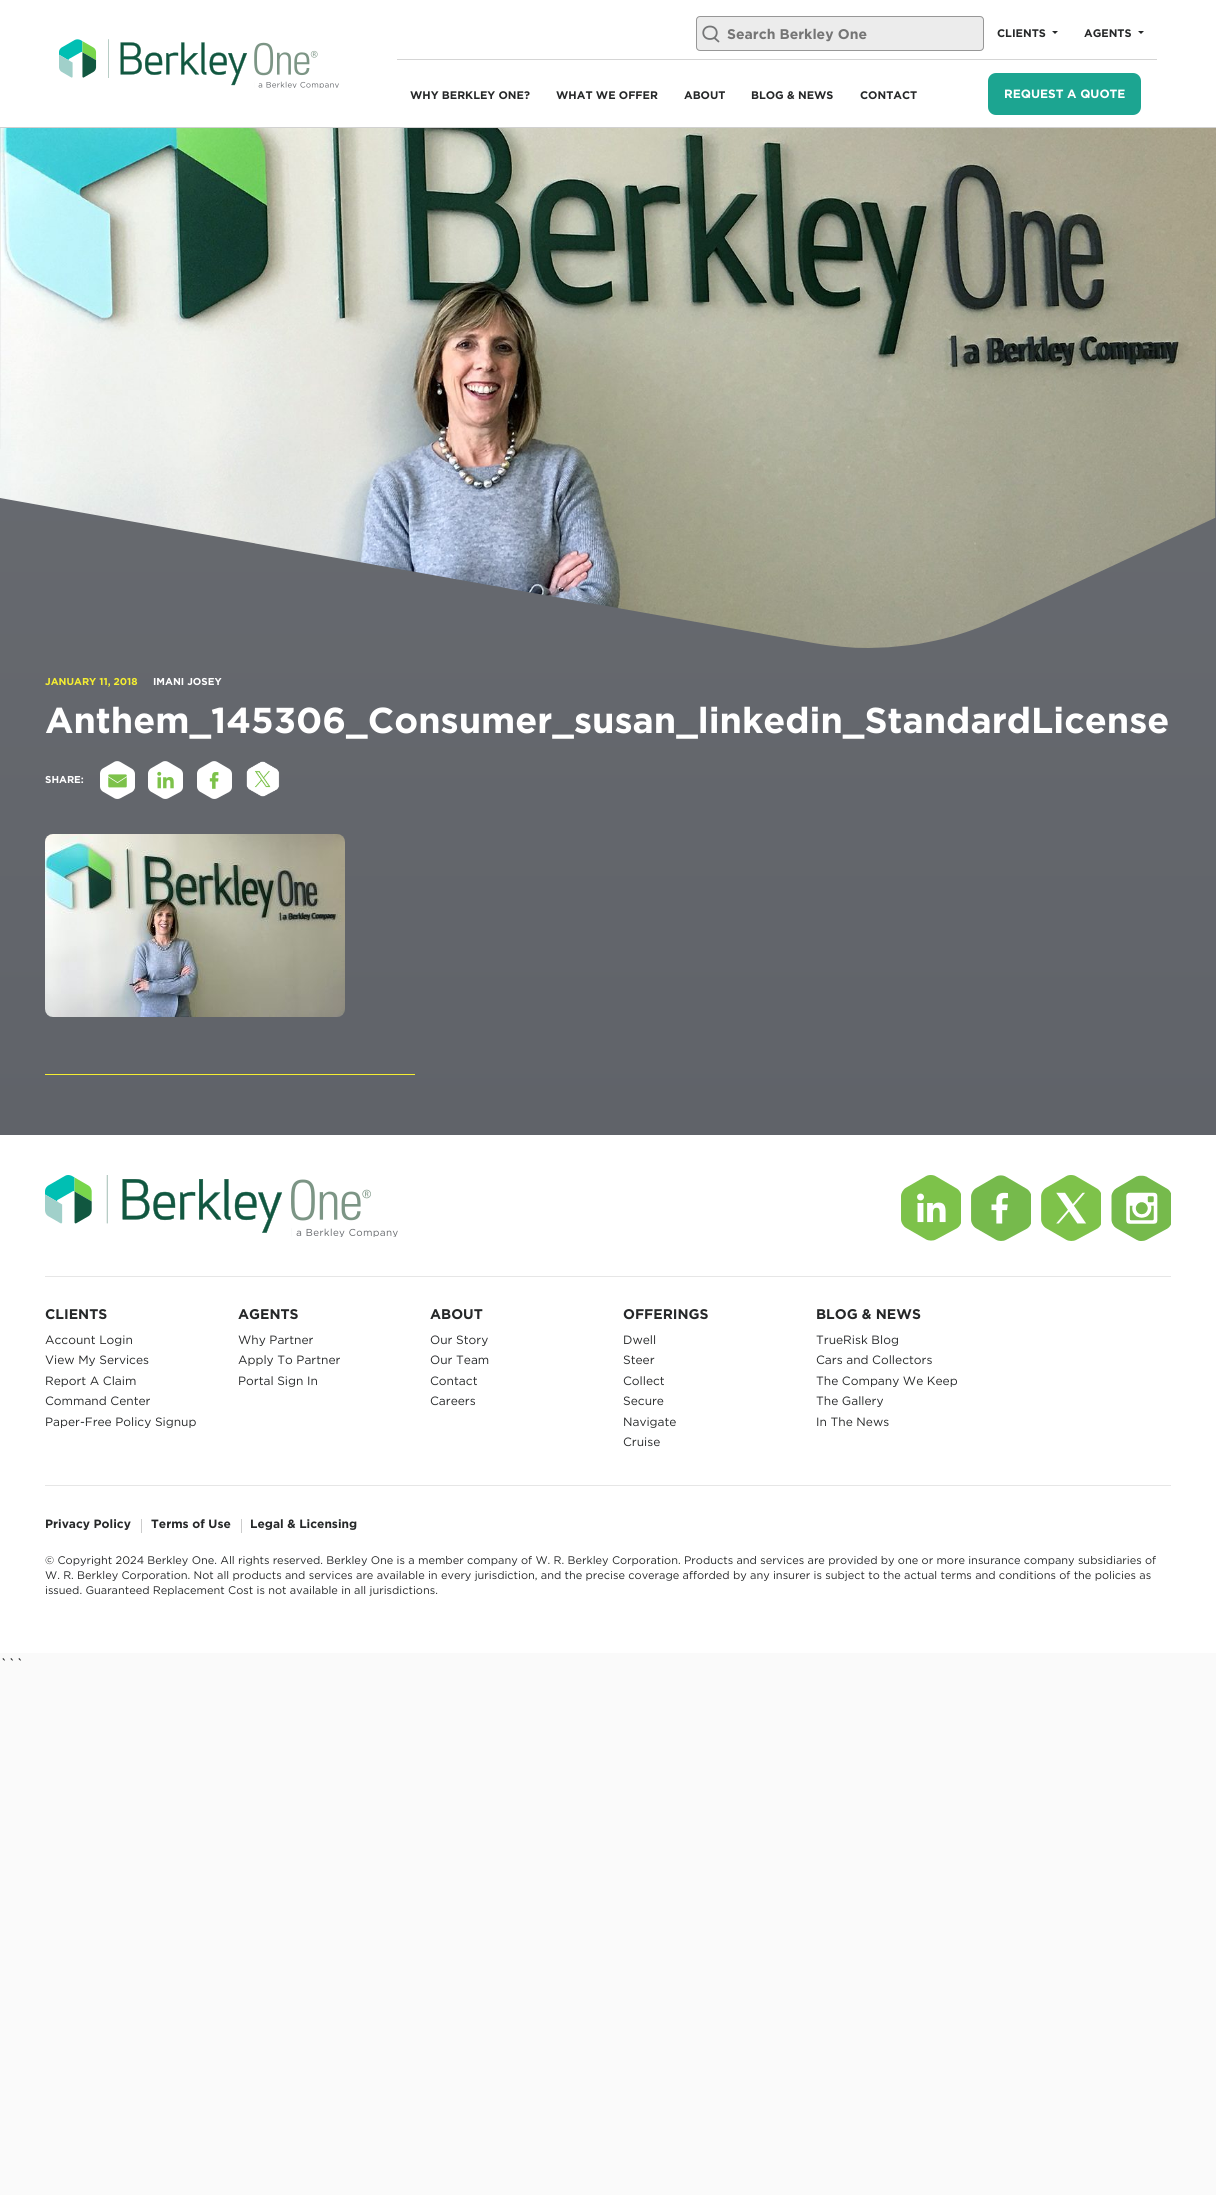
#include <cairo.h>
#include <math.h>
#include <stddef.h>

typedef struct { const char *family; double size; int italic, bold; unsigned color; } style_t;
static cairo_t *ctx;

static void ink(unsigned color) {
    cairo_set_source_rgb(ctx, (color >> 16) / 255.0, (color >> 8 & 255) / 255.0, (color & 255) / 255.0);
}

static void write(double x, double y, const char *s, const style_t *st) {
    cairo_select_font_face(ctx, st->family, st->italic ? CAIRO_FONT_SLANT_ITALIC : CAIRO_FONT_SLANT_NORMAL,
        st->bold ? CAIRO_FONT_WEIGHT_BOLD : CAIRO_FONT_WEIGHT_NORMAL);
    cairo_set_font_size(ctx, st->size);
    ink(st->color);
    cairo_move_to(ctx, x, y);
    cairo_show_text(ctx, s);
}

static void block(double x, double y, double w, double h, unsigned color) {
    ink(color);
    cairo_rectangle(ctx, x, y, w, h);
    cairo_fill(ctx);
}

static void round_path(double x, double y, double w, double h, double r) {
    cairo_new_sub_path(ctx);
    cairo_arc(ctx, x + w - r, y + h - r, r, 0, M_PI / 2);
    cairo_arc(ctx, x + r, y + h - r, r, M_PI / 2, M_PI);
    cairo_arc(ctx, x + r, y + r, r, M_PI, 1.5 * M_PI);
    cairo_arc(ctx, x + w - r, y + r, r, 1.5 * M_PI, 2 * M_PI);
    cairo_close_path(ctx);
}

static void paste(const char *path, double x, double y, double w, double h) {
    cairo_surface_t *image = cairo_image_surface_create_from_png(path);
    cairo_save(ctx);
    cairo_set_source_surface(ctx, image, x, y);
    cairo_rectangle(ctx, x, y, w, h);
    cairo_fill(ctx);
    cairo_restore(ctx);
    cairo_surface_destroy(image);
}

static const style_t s1 = {"Gotham", 14, 0, 1, 0x757575};
static const style_t s2 = {"Gotham", 11, 0, 1, 0x262829};
static const style_t s3 = {"Gotham", 12, 0, 1, 0xffffff};
static const style_t s4 = {"Gotham", 10, 0, 1, 0xf5ee31};
static const style_t s5 = {"Gotham", 10, 0, 1, 0xffffff};
static const style_t s6 = {"Gotham", 36, 0, 1, 0xffffff};
static const style_t s7 = {"Gotham", 14, 0, 1, 0x262829};
static const style_t s8 = {"Gotham", 12, 0, 0, 0x262829};
static const style_t s9 = {"Gotham", 12, 0, 1, 0x262829};
static const style_t s10 = {"Gotham", 11, 0, 0, 0x262829};
static const style_t s11 = {"Gotham", 16, 0, 0, 0x262829};

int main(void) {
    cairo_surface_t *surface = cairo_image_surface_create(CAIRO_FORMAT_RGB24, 1216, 2195);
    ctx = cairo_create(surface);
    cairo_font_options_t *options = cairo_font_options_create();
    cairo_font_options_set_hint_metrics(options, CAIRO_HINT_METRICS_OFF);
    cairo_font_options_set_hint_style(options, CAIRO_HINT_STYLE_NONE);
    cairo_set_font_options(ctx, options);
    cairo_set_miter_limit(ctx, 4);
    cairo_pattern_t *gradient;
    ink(0xfafafa);
    cairo_paint(ctx);
    block(0, 0, 1216, 127, 0xffffff);
    block(0, 127, 1216, 1, 0xd1d1d1);
    paste("pic1.png", 59, 39, 280, 49);
    ink(0xececec);
    round_path(696, 16, 288, 35, 4);
    cairo_fill(ctx);
    cairo_new_path(ctx);
    cairo_move_to(ctx, 710, 39);
    cairo_curve_to(ctx, 719, 39, 719, 26.5, 710, 26.5);
    cairo_curve_to(ctx, 701, 26.5, 701, 39, 710, 39);
    cairo_close_path(ctx);
    cairo_move_to(ctx, 718.5, 41.5);
    cairo_line_to(ctx, 714.5, 38);
    ink(0x747576);
    cairo_set_line_width(ctx, 1.8);
    cairo_set_line_cap(ctx, CAIRO_LINE_CAP_ROUND);
    cairo_set_line_join(ctx, CAIRO_LINE_JOIN_ROUND);
    cairo_stroke(ctx);
    round_path(696.5, 16.5, 287, 34, 3.5);
    ink(0x979797);
    cairo_set_line_width(ctx, 1);
    cairo_set_line_cap(ctx, CAIRO_LINE_CAP_BUTT);
    cairo_set_line_join(ctx, CAIRO_LINE_JOIN_MITER);
    cairo_stroke(ctx);
    write(727, 39, "Search Berkley One", &s1);
    write(997, 37, "CLIENTS", &s2);
    cairo_new_path(ctx);
    cairo_move_to(ctx, 1052, 31);
    cairo_line_to(ctx, 1058, 31);
    cairo_line_to(ctx, 1055, 34);
    cairo_close_path(ctx);
    cairo_fill(ctx);
    write(1084, 37, "AGENTS", &s2);
    cairo_new_path(ctx);
    cairo_move_to(ctx, 1138, 31);
    cairo_line_to(ctx, 1144, 31);
    cairo_line_to(ctx, 1141, 34);
    cairo_close_path(ctx);
    cairo_fill(ctx);
    block(397, 59, 760, 1, 0xd5d5d5);
    write(410, 99, "WHY BERKLEY ONE?", &s2);
    write(556, 99, "WHAT WE OFFER", &s2);
    write(684, 99, "ABOUT", &s2);
    write(751, 99, "BLOG & NEWS", &s2);
    write(860, 99, "CONTACT", &s2);
    ink(0x1ca591);
    round_path(988, 73, 153, 42, 8);
    cairo_fill(ctx);
    write(1004, 98, "REQUEST A QUOTE", &s3);
    gradient = cairo_pattern_create_linear(608, 128, 608, 1135);
    cairo_pattern_add_color_stop_rgba(gradient, 0, 0.416, 0.427, 0.447, 1);
    cairo_pattern_add_color_stop_rgba(gradient, 1, 0.376, 0.388, 0.412, 1);
    cairo_set_source(ctx, gradient);
    cairo_pattern_destroy(gradient);
    cairo_rectangle(ctx, 0, 128, 1216, 1007);
    cairo_fill(ctx);
    paste("pic2.png", 0, 128, 1216, 520);
    write(45, 685, "JANUARY 11, 2018", &s4);
    write(153, 685, "IMANI JOSEY", &s5);
    write(45, 733, "Anthem_145306_Consumer_susan_linkedin_StandardLicense", &s6);
    write(45, 783, "SHARE:", &s5);
    paste("pic3.png", 100, 761, 35, 38);
    paste("pic4.png", 148, 761, 35, 38);
    paste("pic5.png", 197, 761, 35, 38);
    paste("pic6.png", 246, 761, 34, 36);
    paste("pic7.png", 45, 834, 300, 183);
    block(45, 1074, 370, 1, 0xf5ee31);
    block(0, 1135, 1216, 518, 0xffffff);
    paste("pic8.png", 45, 1175, 353, 62);
    paste("pic9.png", 901, 1175, 60, 66);
    paste("pic10.png", 971, 1175, 60, 66);
    paste("pic11.png", 1041, 1175, 60, 66);
    paste("pic12.png", 1111, 1175, 60, 66);
    block(45, 1276, 1126, 1, 0xe6e6e6);
    write(45, 1319, "CLIENTS", &s7);
    write(45, 1344, "Account Login", &s8);
    write(45, 1364, "View My Services", &s8);
    write(45, 1385, "Report A Claim", &s8);
    write(45, 1405, "Command Center", &s8);
    write(45, 1426, "Paper-Free Policy Signup", &s8);
    write(238, 1319, "AGENTS", &s7);
    write(238, 1344, "Why Partner", &s8);
    write(238, 1364, "Apply To Partner", &s8);
    write(238, 1385, "Portal Sign In", &s8);
    write(430, 1319, "ABOUT", &s7);
    write(430, 1344, "Our Story", &s8);
    write(430, 1364, "Our Team", &s8);
    write(430, 1385, "Contact", &s8);
    write(430, 1405, "Careers", &s8);
    write(623, 1319, "OFFERINGS", &s7);
    write(623, 1344, "Dwell", &s8);
    write(623, 1364, "Steer", &s8);
    write(623, 1385, "Collect", &s8);
    write(623, 1405, "Secure", &s8);
    write(623, 1426, "Navigate", &s8);
    write(623, 1446, "Cruise", &s8);
    write(816, 1319, "BLOG & NEWS", &s7);
    write(816, 1344, "TrueRisk Blog", &s8);
    write(816, 1364, "Cars and Collectors", &s8);
    write(816, 1385, "The Company We Keep", &s8);
    write(816, 1405, "The Gallery", &s8);
    write(816, 1426, "In The News", &s8);
    block(45, 1485, 1126, 1, 0xe6e6e6);
    block(141, 1519, 1, 14, 0xcccccc);
    write(45, 1528, "Privacy Policy", &s9);
    block(241, 1519, 1, 14, 0xcccccc);
    write(151, 1528, "Terms of Use", &s9);
    write(250, 1528, "Legal & Licensing", &s9);
    write(45, 1564, "© Copyright 2024 Berkley One. All rights reserved. Berkley One is a member company of W. R. Berkley Corporation. Products and services are provided by one or more insurance company subsidiaries of", &s10);
    write(45, 1579, "W. R. Berkley Corporation. Not all products and services are available in every jurisdiction, and the precise coverage afforded by any insurer is subject to the actual terms and conditions of the policies as", &s10);
    write(45, 1594, "issued. Guaranteed Replacement Cost is not available in all jurisdictions.", &s10);
    write(0, 1670, "```", &s11);
    cairo_surface_write_to_png(surface, "screenshot.png");
    cairo_font_options_destroy(options);
    cairo_destroy(ctx);
    cairo_surface_destroy(surface);
    return 0;
}
